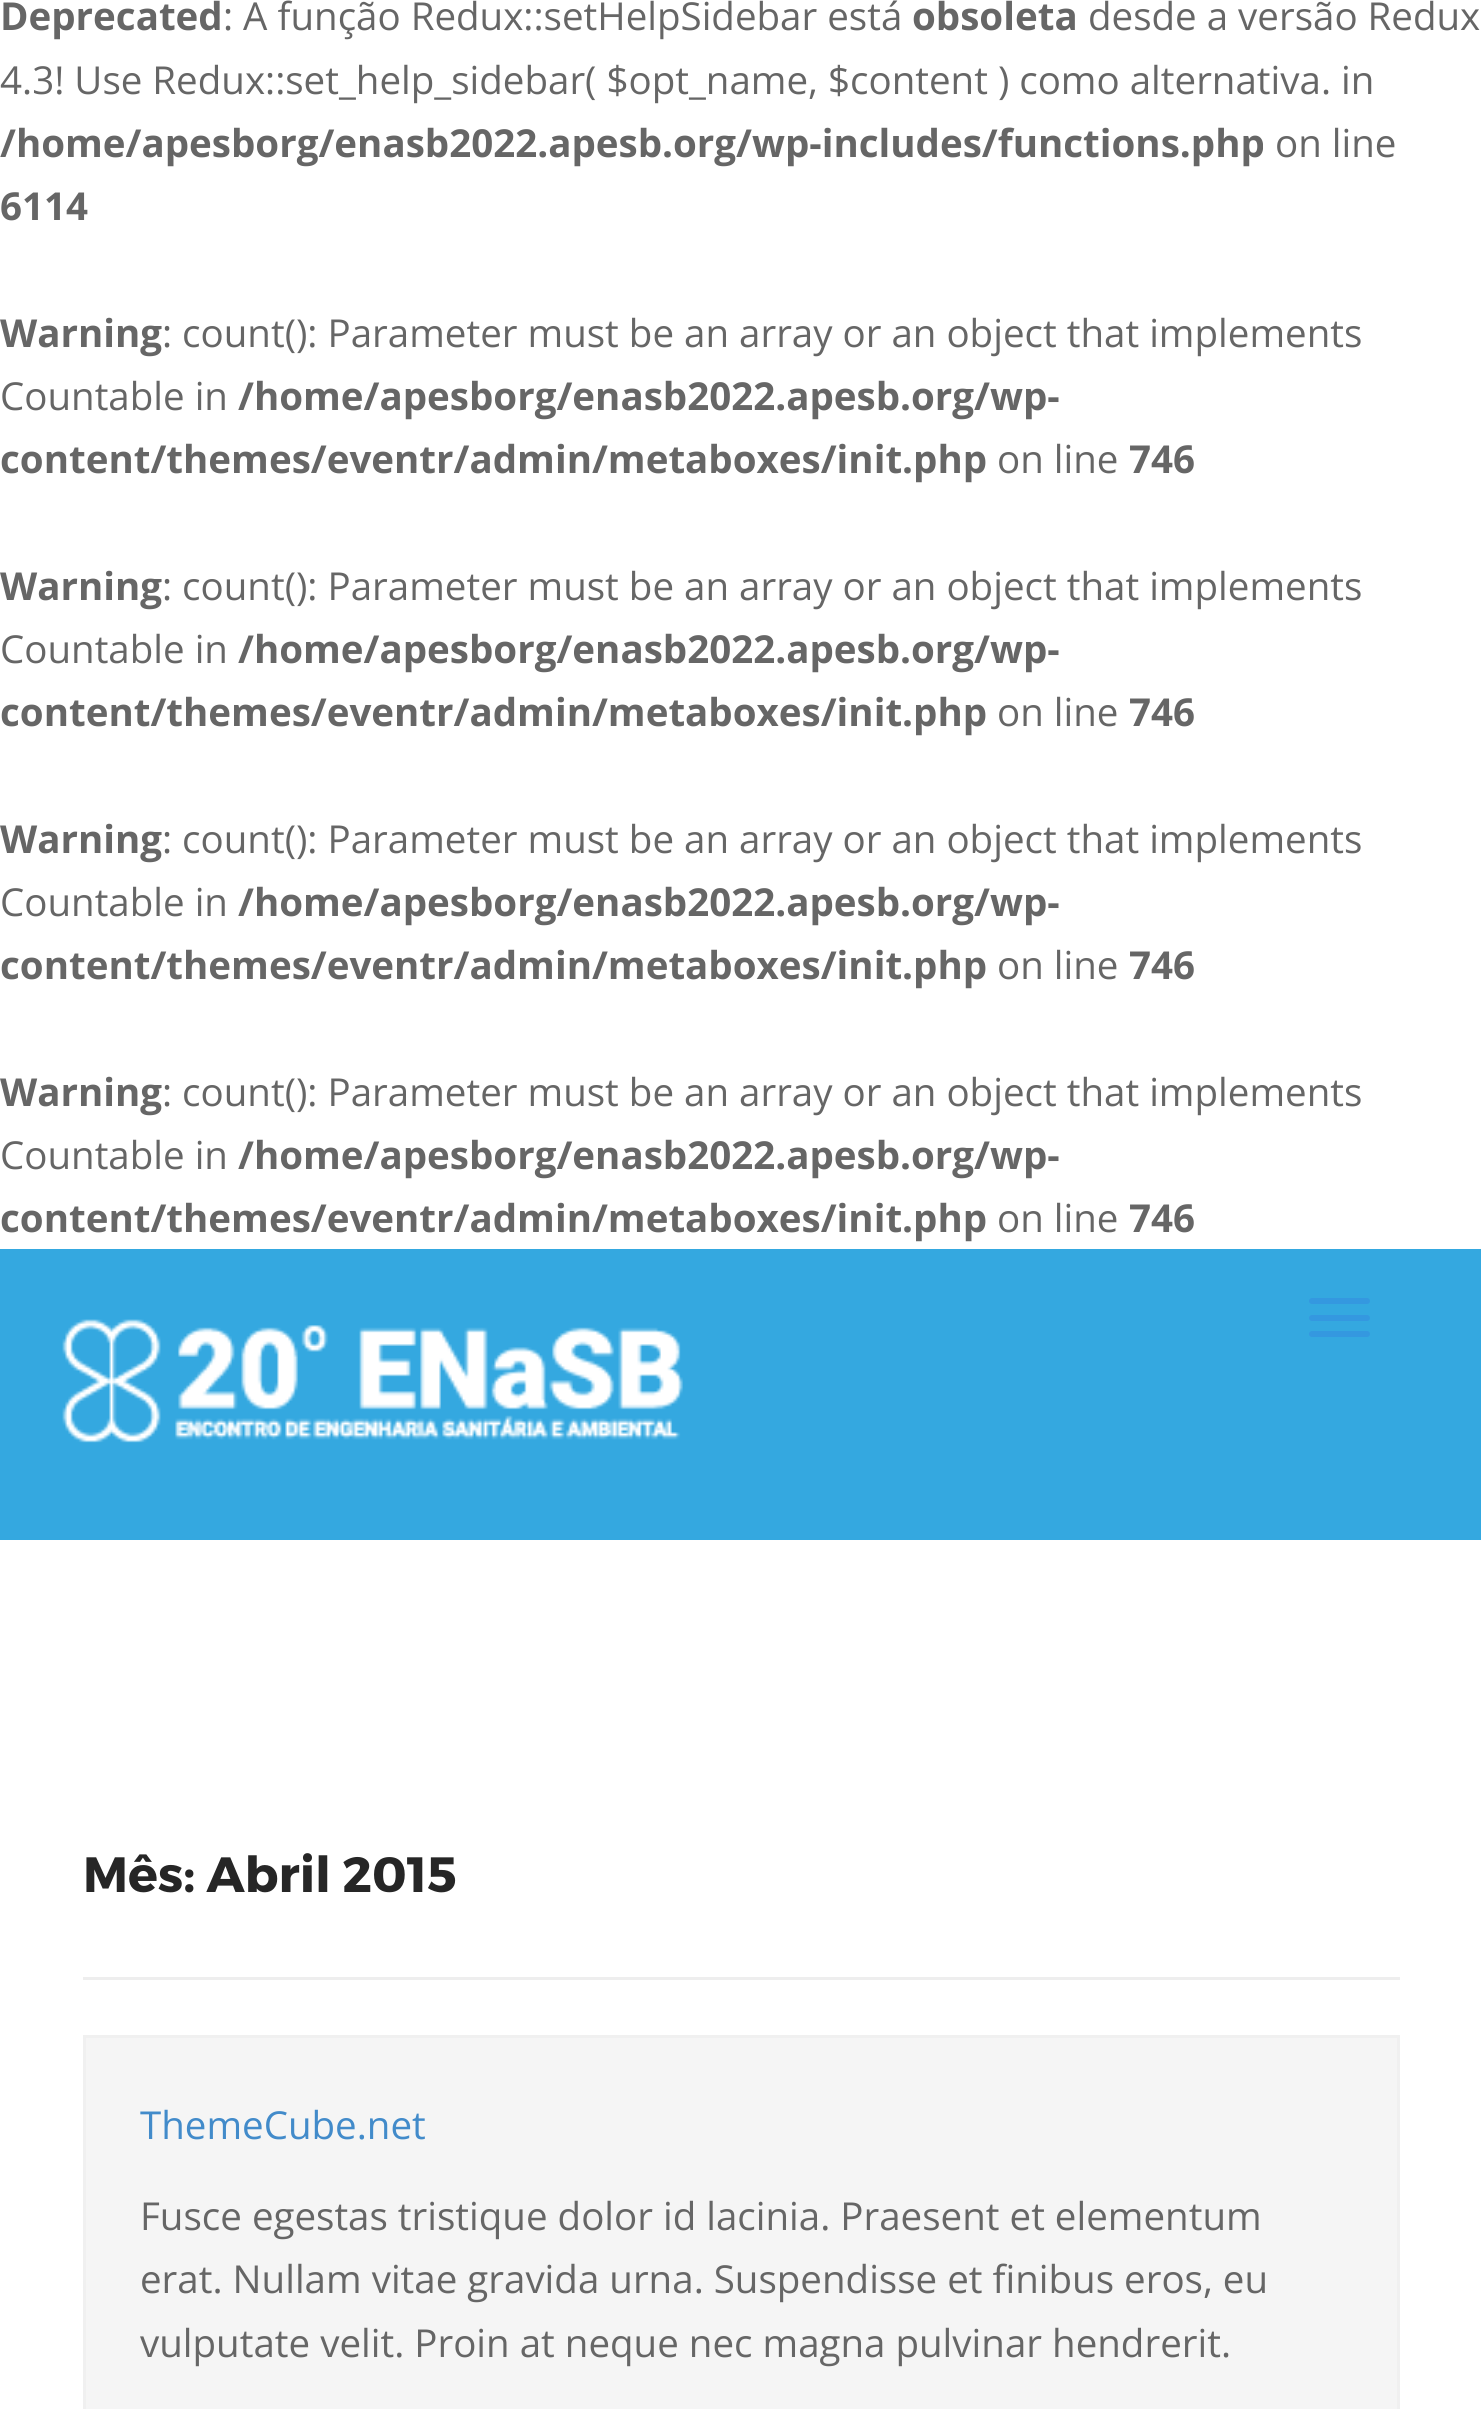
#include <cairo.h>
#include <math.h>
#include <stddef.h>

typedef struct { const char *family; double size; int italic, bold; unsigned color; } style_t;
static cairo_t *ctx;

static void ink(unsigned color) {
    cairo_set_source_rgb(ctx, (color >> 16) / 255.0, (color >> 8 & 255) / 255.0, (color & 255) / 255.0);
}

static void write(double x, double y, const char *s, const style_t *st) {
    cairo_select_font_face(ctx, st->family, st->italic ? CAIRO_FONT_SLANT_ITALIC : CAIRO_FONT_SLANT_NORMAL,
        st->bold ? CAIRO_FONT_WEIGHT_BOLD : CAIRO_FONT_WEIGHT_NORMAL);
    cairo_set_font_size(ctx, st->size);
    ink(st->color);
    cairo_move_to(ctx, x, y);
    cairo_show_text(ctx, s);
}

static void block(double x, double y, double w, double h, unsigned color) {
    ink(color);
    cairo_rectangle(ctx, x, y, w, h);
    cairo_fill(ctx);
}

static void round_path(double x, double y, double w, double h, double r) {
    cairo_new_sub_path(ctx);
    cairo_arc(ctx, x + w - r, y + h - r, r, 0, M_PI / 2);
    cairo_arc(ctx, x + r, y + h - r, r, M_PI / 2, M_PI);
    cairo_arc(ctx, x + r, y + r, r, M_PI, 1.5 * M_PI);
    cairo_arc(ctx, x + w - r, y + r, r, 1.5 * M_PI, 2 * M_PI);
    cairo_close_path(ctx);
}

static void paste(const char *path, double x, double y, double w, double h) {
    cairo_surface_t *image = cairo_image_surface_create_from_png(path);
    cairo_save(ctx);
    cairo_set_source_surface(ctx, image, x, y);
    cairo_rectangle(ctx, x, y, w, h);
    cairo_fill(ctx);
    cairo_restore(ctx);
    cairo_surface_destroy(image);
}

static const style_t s1 = {"Open Sans", 38.5, 0, 1, 0x666666};
static const style_t s2 = {"Open Sans", 38.5, 0, 0, 0x666666};
static const style_t s3 = {"Montserrat", 49.5, 0, 1, 0x262626};
static const style_t s4 = {"Open Sans", 38.5, 0, 0, 0x428bca};

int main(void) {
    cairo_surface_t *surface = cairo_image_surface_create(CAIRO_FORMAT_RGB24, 1481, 2409);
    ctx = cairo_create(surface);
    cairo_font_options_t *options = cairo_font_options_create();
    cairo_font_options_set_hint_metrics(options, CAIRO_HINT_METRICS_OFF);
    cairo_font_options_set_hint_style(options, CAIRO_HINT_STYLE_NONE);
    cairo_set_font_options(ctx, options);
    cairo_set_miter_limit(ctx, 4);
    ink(0xffffff);
    cairo_paint(ctx);
    write(0, 30, "Deprecated", &s1);
    write(223, 30, ": A função Redux::setHelpSidebar está", &s2);
    write(912, 30, "obsoleta", &s1);
    write(1088, 30, "desde a versão Redux", &s2);
    write(0, 94, "4.3! Use Redux::set_help_sidebar( $opt_name, $content ) como alternativa. in", &s2);
    write(0, 157, "/home/apesborg/enasb2022.apesb.org/wp-includes/functions.php", &s1);
    write(1275, 157, "on line", &s2);
    write(0, 220, "6114", &s1);
    write(0, 347, "Warning", &s1);
    write(162, 347, ": count(): Parameter must be an array or an object that implements", &s2);
    write(0, 410, "Countable in", &s2);
    write(238, 410, "/home/apesborg/enasb2022.apesb.org/wp-", &s1);
    write(0, 473, "content/themes/eventr/admin/metaboxes/init.php", &s1);
    write(997, 473, "on line", &s2);
    write(1129, 473, "746", &s1);
    write(0, 600, "Warning", &s1);
    write(162, 600, ": count(): Parameter must be an array or an object that implements", &s2);
    write(0, 663, "Countable in", &s2);
    write(238, 663, "/home/apesborg/enasb2022.apesb.org/wp-", &s1);
    write(0, 726, "content/themes/eventr/admin/metaboxes/init.php", &s1);
    write(997, 726, "on line", &s2);
    write(1129, 726, "746", &s1);
    write(0, 853, "Warning", &s1);
    write(162, 853, ": count(): Parameter must be an array or an object that implements", &s2);
    write(0, 916, "Countable in", &s2);
    write(238, 916, "/home/apesborg/enasb2022.apesb.org/wp-", &s1);
    write(0, 979, "content/themes/eventr/admin/metaboxes/init.php", &s1);
    write(997, 979, "on line", &s2);
    write(1129, 979, "746", &s1);
    write(0, 1106, "Warning", &s1);
    write(162, 1106, ": count(): Parameter must be an array or an object that implements", &s2);
    write(0, 1169, "Countable in", &s2);
    write(238, 1169, "/home/apesborg/enasb2022.apesb.org/wp-", &s1);
    write(0, 1232, "content/themes/eventr/admin/metaboxes/init.php", &s1);
    write(997, 1232, "on line", &s2);
    write(1129, 1232, "746", &s1);
    block(0, 1249, 1481, 291, 0x34a8e0);
    paste("pic1.png", 62, 1319, 621, 124);
    ink(0x3498e0);
    round_path(1309, 1298, 61, 6, 3);
    cairo_fill(ctx);
    round_path(1309, 1315, 61, 6, 3);
    cairo_fill(ctx);
    round_path(1309, 1331, 61, 6, 3);
    cairo_fill(ctx);
    block(83, 1977, 1317, 3, 0xeeeeee);
    write(83, 1892, "Mês: Abril 2015", &s3);
    ink(0xf5f5f5);
    cairo_rectangle(ctx, 84.5, 2036.5, 1314, 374);
    cairo_fill_preserve(ctx);
    ink(0xf0f0f0);
    cairo_set_line_width(ctx, 3);
    cairo_stroke(ctx);
    write(140, 2139, "ThemeCube.net", &s4);
    write(140, 2230, "Fusce egestas tristique dolor id lacinia. Praesent et elementum", &s2);
    write(140, 2293, "erat. Nullam vitae gravida urna. Suspendisse et finibus eros, eu", &s2);
    write(140, 2357, "vulputate velit. Proin at neque nec magna pulvinar hendrerit.", &s2);
    cairo_surface_write_to_png(surface, "screenshot.png");
    cairo_font_options_destroy(options);
    cairo_destroy(ctx);
    cairo_surface_destroy(surface);
    return 0;
}
